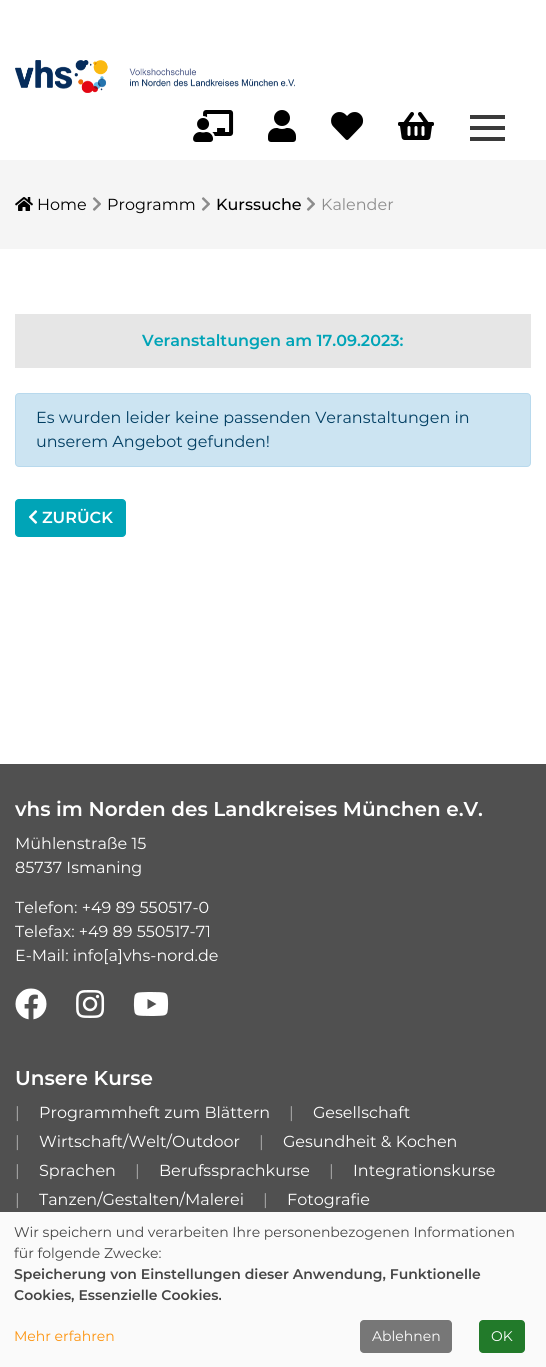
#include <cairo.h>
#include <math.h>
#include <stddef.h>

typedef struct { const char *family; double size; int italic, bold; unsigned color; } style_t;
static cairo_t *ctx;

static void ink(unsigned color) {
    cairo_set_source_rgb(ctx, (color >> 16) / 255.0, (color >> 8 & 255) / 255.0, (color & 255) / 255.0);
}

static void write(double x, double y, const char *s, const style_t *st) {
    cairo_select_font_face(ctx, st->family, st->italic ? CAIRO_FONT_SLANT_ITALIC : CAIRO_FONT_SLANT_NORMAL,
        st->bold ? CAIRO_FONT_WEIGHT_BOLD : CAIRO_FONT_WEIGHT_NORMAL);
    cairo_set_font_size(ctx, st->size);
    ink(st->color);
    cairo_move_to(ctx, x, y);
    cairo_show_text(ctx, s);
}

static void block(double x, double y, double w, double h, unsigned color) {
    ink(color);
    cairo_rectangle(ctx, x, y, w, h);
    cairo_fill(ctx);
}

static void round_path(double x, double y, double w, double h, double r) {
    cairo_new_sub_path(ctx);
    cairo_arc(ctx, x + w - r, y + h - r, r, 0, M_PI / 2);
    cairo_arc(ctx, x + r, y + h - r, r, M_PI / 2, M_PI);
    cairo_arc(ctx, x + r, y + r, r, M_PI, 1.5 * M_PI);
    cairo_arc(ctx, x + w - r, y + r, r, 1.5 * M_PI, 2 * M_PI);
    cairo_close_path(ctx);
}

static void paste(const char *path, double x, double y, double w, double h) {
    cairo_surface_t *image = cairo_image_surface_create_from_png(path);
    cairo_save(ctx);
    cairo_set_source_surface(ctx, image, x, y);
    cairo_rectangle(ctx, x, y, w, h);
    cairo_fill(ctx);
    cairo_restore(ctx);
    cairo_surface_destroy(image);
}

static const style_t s1 = {"Montserrat", 16, 0, 0, 0x000000};
static const style_t s2 = {"Montserrat Medium", 16, 0, 0, 0x000000};
static const style_t s3 = {"Montserrat", 16, 0, 0, 0x8c8c8c};
static const style_t s4 = {"Montserrat SemiBold", 16, 0, 0, 0x00a4b7};
static const style_t s5 = {"Montserrat", 16, 0, 0, 0x013e62};
static const style_t s6 = {"Montserrat SemiBold", 16, 0, 0, 0xffffff};
static const style_t s7 = {"Montserrat SemiBold", 20, 0, 0, 0xffffff};
static const style_t s8 = {"Montserrat", 16, 0, 0, 0xffffff};
static const style_t s9 = {"Montserrat", 16, 0, 0, 0xa8a8a8};
static const style_t s10 = {"Montserrat", 14, 0, 0, 0x444444};
static const style_t s11 = {"Montserrat SemiBold", 14, 0, 0, 0x444444};
static const style_t s12 = {"Montserrat", 14, 0, 0, 0xfd930c};
static const style_t s13 = {"Montserrat", 14, 0, 0, 0xffffff};

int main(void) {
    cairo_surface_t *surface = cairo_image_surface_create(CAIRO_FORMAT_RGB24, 546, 1367);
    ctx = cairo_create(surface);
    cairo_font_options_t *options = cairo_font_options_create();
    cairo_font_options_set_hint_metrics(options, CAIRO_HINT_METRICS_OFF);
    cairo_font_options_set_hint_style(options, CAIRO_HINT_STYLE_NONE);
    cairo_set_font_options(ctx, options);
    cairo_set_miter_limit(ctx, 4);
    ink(0xffffff);
    cairo_paint(ctx);
    paste("pic1.png", 15, 60, 280, 33);
    paste("pic2.png", 193, 110, 41, 32);
    paste("pic3.png", 268, 110, 28, 32);
    paste("pic4.png", 331, 112, 33, 28);
    paste("pic5.png", 398, 112, 36, 28);
    block(470, 115, 35, 4, 0x3a3a3a);
    block(470, 126, 35, 4, 0x3a3a3a);
    block(470, 137, 35, 4, 0x3a3a3a);
    block(0, 160, 546, 89, 0xf5f5f5);
    paste("pic6.png", 15, 197, 18, 14);
    write(37, 210, "Home", &s1);
    paste("pic7.png", 92, 197, 9, 14);
    write(107, 210, "Programm", &s1);
    paste("pic7.png", 201, 197, 9, 14);
    write(216, 210, "Kurssuche", &s2);
    paste("pic7.png", 306, 197, 9, 14);
    write(321, 210, "Kalender", &s3);
    block(15, 314, 516, 54, 0xe6e6e6);
    write(142, 346, "Veranstaltungen am 17.09.2023:", &s4);
    ink(0xcce4f2);
    round_path(15.5, 393.5, 515, 73, 3.5);
    cairo_fill_preserve(ctx);
    ink(0xb8d9ed);
    cairo_set_line_width(ctx, 1);
    cairo_stroke(ctx);
    write(36, 423, "Es wurden leider keine passenden Veranstaltungen in", &s5);
    write(36, 447, "unserem Angebot gefunden!", &s5);
    ink(0x00a4b7);
    round_path(15.5, 499.5, 110, 37, 3.5);
    cairo_fill_preserve(ctx);
    cairo_stroke(ctx);
    paste("pic8.png", 28, 510, 10, 14);
    write(42, 523, "ZURÜCK", &s6);
    block(0, 764, 546, 448, 0x505050);
    write(15, 816, "vhs im Norden des Landkreises München e.V.", &s7);
    write(15, 849, "Mühlenstraße 15", &s8);
    write(15, 873, "85737 Ismaning", &s8);
    write(15, 913, "Telefon: +49 89 550517-0", &s8);
    write(15, 937, "Telefax: +49 89 550517-71", &s8);
    write(15, 961, "E-Mail: info[a]vhs-nord.de", &s8);
    paste("pic9.png", 15, 988, 32, 32);
    paste("pic10.png", 76, 990, 29, 28);
    paste("pic11.png", 133, 992, 36, 24);
    write(15, 1085, "Unsere Kurse", &s7);
    write(15, 1118, "|", &s9);
    write(39, 1118, "Programmheft zum Blättern", &s8);
    write(289, 1118, "|", &s9);
    write(313, 1118, "Gesellschaft", &s8);
    write(15, 1147, "|", &s9);
    write(39, 1147, "Wirtschaft/Welt/Outdoor", &s8);
    write(259, 1147, "|", &s9);
    write(283, 1147, "Gesundheit & Kochen", &s8);
    write(15, 1176, "|", &s9);
    write(39, 1176, "Sprachen", &s8);
    write(135, 1176, "|", &s9);
    write(159, 1176, "Berufssprachkurse", &s8);
    write(329, 1176, "|", &s9);
    write(353, 1176, "Integrationskurse", &s8);
    write(15, 1205, "|", &s9);
    write(39, 1205, "Tanzen/Gestalten/Malerei", &s8);
    write(263, 1205, "|", &s9);
    write(287, 1205, "Fotografie", &s8);
    block(0, 1212, 546, 155, 0xfafafa);
    write(14, 1237, "Wir speichern und verarbeiten Ihre personenbezogenen Informationen", &s10);
    write(14, 1258, "für folgende Zwecke:", &s10);
    write(14, 1279, "Speicherung von Einstellungen dieser Anwendung, Funktionelle", &s11);
    write(14, 1300, "Cookies, Essenzielle Cookies.", &s11);
    write(14, 1341, "Mehr erfahren", &s12);
    ink(0x777777);
    round_path(360, 1320, 92, 33, 4);
    cairo_fill(ctx);
    write(372, 1341, "Ablehnen", &s13);
    ink(0x227a2a);
    round_path(479, 1320, 46, 33, 4);
    cairo_fill(ctx);
    write(491, 1341, "OK", &s13);
    cairo_surface_write_to_png(surface, "screenshot.png");
    cairo_font_options_destroy(options);
    cairo_destroy(ctx);
    cairo_surface_destroy(surface);
    return 0;
}
